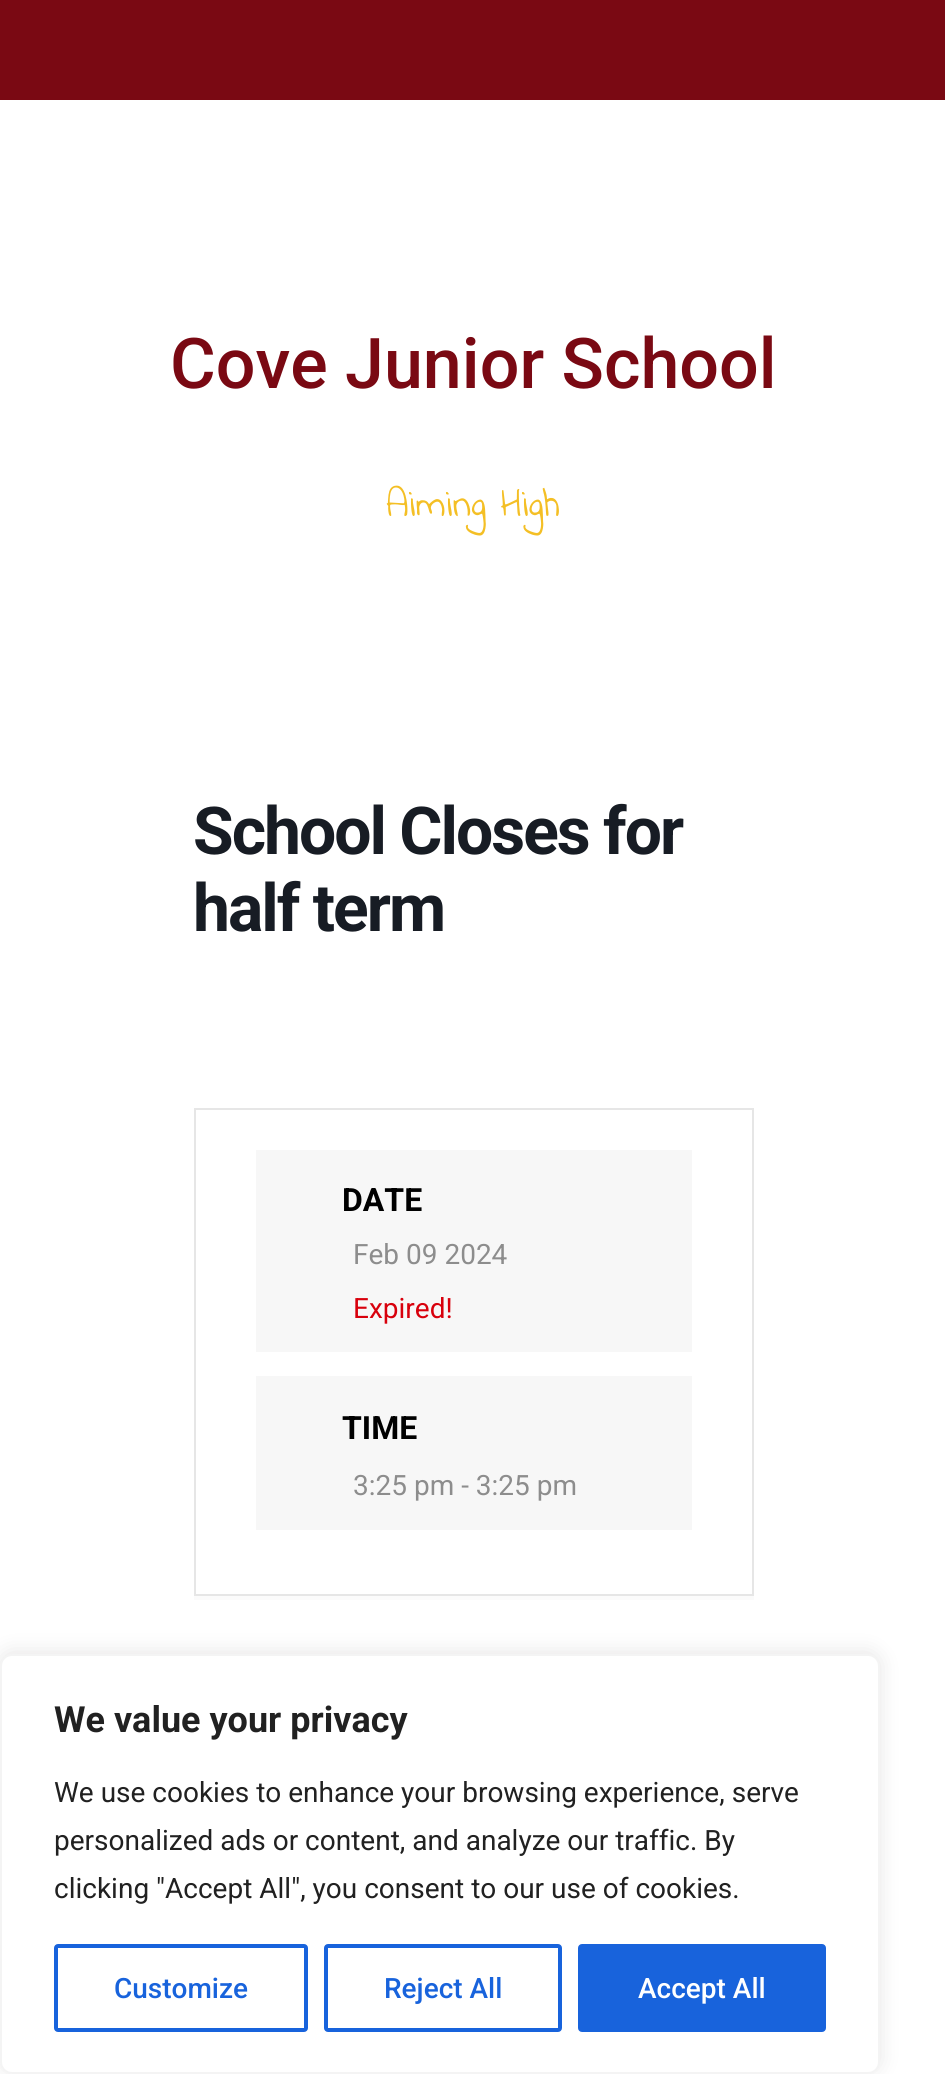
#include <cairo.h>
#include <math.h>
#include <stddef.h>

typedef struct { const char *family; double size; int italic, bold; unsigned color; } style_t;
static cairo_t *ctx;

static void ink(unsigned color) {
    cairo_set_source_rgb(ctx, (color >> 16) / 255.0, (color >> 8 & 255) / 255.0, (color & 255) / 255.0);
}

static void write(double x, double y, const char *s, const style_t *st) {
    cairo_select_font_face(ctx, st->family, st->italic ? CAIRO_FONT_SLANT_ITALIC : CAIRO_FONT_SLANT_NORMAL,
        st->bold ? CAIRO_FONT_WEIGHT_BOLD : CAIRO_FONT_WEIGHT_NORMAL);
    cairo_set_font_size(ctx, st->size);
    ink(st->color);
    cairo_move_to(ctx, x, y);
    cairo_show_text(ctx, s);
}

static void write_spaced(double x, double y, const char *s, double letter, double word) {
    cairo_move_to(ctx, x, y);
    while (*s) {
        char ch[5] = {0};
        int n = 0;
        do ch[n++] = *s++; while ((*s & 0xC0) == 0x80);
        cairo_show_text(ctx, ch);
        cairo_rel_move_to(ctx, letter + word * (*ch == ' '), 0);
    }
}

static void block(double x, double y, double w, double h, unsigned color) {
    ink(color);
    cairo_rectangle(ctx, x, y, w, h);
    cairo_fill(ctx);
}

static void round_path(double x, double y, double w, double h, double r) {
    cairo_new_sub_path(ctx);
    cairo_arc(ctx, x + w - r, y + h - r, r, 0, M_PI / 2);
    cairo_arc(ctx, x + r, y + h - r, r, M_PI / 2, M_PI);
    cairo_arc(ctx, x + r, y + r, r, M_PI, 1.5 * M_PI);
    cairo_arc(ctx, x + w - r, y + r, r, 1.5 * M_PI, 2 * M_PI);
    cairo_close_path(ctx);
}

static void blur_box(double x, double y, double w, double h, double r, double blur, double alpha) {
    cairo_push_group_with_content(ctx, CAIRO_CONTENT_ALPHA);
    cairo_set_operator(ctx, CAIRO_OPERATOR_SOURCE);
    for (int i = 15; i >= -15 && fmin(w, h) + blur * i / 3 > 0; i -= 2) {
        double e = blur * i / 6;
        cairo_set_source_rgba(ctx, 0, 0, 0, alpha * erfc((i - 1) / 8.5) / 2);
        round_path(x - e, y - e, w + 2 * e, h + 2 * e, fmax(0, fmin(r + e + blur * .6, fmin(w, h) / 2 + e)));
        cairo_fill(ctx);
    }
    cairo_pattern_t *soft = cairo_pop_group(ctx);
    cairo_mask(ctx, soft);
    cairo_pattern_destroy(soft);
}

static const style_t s1 = {"Roboto Medium", 70, 0, 0, 0x7a0913};
static const style_t s2 = {"Indie Flower", 40, 0, 0, 0xf4bf25};
static const style_t s3 = {"Roboto", 32, 0, 1, 0x000000};
static const style_t s4 = {"Roboto", 28, 0, 0, 0x8d8d8d};
static const style_t s5 = {"Roboto", 28, 0, 0, 0xd8000c};
static const style_t s6 = {"Roboto", 36, 0, 1, 0x212121};
static const style_t s7 = {"Roboto", 28, 0, 0, 0x212121};
static const style_t s8 = {"Roboto Medium", 28, 0, 0, 0x1863dc};
static const style_t s9 = {"Roboto Medium", 28, 0, 0, 0xffffff};

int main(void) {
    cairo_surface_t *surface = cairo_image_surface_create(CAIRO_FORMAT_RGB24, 945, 2074);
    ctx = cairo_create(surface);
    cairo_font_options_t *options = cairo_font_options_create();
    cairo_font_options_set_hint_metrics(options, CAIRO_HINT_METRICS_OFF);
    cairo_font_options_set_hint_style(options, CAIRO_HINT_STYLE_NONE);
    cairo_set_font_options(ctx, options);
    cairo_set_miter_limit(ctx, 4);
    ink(0xffffff);
    cairo_paint(ctx);
    block(0, 0, 945, 100, 0x7a0913);
    write(170, 388, "Cove Junior School", &s1);
    write(386, 516, "Aiming High", &s2);
    cairo_select_font_face(ctx, "Roboto", CAIRO_FONT_SLANT_NORMAL, CAIRO_FONT_WEIGHT_BOLD);
    cairo_set_font_size(ctx, 66);
    ink(0x171c24);
    write_spaced(193, 854, "School Closes for", -2, 0);
    write_spaced(193, 931, "half term", -2, 0);
    block(194, 1596, 560, 4, 0xfbfbfb);
    cairo_rectangle(ctx, 195, 1109, 558, 486);
    ink(0xe6e6e6);
    cairo_stroke(ctx);
    block(256, 1150, 436, 202, 0xf7f7f7);
    write(342, 1211, "DATE", &s3);
    write(353, 1264, "Feb 09 2024", &s4);
    write(353, 1318, "Expired!", &s5);
    block(256, 1376, 436, 154, 0xf7f7f7);
    write(342, 1439, "TIME", &s3);
    write(353, 1495, "3:25 pm - 3:25 pm", &s4);
    ink(0xacabab);
    blur_box(0, 1652, 880, 420, 12, 10, 0.3);
    ink(0xffffff);
    round_path(1, 1655, 878, 418, 11);
    cairo_fill_preserve(ctx);
    ink(0xf4f4f4);
    cairo_stroke(ctx);
    write(54, 1732, "We value your privacy", &s6);
    write(54, 1802, "We use cookies to enhance your browsing experience, serve", &s7);
    write(54, 1850, "personalized ads or content, and analyze our traffic. By", &s7);
    write(54, 1898, "clicking \"Accept All\", you consent to our use of cookies.", &s7);
    round_path(56, 1946, 250, 84, 2);
    ink(0x1863dc);
    cairo_set_line_width(ctx, 4);
    cairo_stroke(ctx);
    write(114, 1998, "Customize", &s8);
    round_path(326, 1946, 234, 84, 2);
    cairo_stroke(ctx);
    write(384, 1998, "Reject All", &s8);
    round_path(580, 1946, 244, 84, 2);
    cairo_fill_preserve(ctx);
    cairo_stroke(ctx);
    write(638, 1998, "Accept All", &s9);
    cairo_surface_write_to_png(surface, "screenshot.png");
    cairo_font_options_destroy(options);
    cairo_destroy(ctx);
    cairo_surface_destroy(surface);
    return 0;
}
